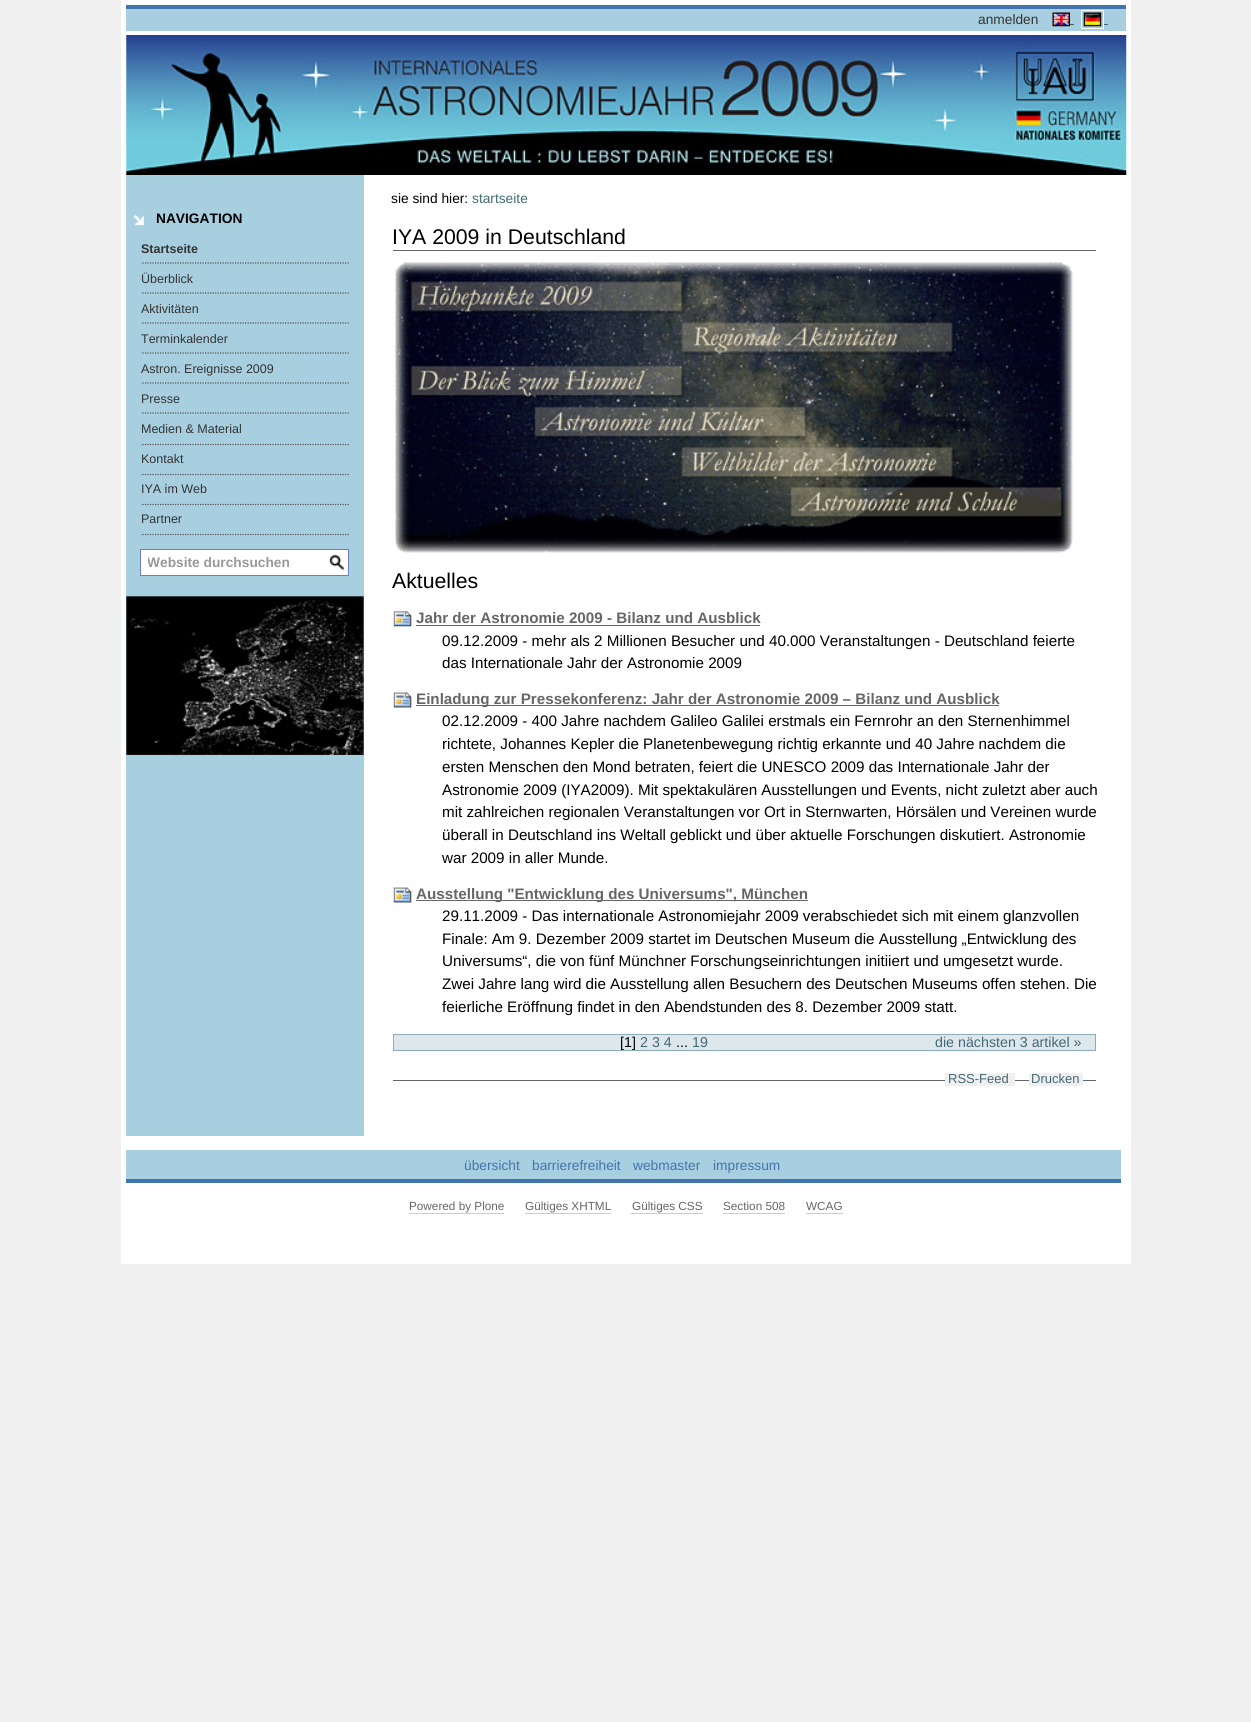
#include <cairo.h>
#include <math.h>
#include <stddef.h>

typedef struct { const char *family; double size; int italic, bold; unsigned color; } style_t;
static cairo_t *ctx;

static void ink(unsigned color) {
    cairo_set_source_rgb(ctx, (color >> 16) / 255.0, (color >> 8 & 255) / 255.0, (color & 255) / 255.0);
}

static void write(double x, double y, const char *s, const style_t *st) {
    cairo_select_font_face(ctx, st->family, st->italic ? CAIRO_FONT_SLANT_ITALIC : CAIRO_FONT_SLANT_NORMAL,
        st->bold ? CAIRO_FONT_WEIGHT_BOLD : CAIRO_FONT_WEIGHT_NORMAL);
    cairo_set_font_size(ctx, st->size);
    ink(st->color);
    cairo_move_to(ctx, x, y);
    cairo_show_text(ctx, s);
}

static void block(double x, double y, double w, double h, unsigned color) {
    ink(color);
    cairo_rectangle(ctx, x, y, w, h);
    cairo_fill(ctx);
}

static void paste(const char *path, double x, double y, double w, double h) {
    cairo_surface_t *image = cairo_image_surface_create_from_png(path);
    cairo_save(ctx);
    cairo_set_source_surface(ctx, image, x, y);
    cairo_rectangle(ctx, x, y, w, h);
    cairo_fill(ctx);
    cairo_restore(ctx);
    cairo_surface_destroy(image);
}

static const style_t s1 = {"Liberation Sans", 13.75, 0, 0, 0x333333};
static const style_t s2 = {"Liberation Sans", 13.75, 0, 1, 0x000000};
static const style_t s3 = {"Liberation Sans", 12.5, 0, 1, 0x333333};
static const style_t s4 = {"Liberation Sans", 12.5, 0, 0, 0x333333};
static const style_t s5 = {"Liberation Sans", 13.75, 0, 1, 0x999999};
static const style_t s6 = {"Liberation Sans", 13.75, 0, 0, 0x000000};
static const style_t s7 = {"Liberation Sans", 13.75, 0, 0, 0x436976};
static const style_t s8 = {"Liberation Sans", 21.25, 0, 0, 0x000000};
static const style_t s9 = {"Liberation Sans", 15.2, 0, 1, 0x666666};
static const style_t s10 = {"Liberation Sans", 15.2, 0, 0, 0x000000};
static const style_t s11 = {"Liberation Sans", 14.25, 0, 0, 0x000000};
static const style_t s12 = {"Liberation Sans", 14.25, 0, 0, 0x436976};
static const style_t s13 = {"Liberation Sans", 13, 0, 0, 0x436976};
static const style_t s14 = {"Liberation Sans", 13.75, 0, 0, 0x4275ae};
static const style_t s15 = {"Liberation Sans", 11.75, 0, 0, 0x666666};

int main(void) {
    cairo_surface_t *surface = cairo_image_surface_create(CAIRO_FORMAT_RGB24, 1251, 1722);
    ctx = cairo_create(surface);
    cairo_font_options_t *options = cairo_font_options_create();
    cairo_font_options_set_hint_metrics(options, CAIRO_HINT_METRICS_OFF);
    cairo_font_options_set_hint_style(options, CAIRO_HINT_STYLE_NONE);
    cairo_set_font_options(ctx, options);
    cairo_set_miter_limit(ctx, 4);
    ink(0xf0f0f0);
    cairo_paint(ctx);
    block(121, 0, 1010, 1264, 0xffffff);
    block(126, 9, 1000, 22, 0xa8cfe0);
    block(126, 5, 1000, 4, 0x4275ae);
    write(978, 24, "anmelden", &s1);
    paste("pic1.png", 1052, 12, 18, 15);
    cairo_rectangle(ctx, 1081.5, 10.5, 22, 18);
    ink(0xffffff);
    cairo_set_line_width(ctx, 1);
    cairo_stroke(ctx);
    block(1070, 24, 4, 1, 0x436976);
    paste("pic2.png", 1083, 12, 19, 15);
    block(1104, 24, 4, 1, 0x436976);
    paste("pic3.png", 126, 35, 1001, 140);
    block(126, 175, 238, 961, 0xa8cfe0);
    paste("pic4.png", 133, 214, 11, 12);
    write(156, 223, "NAVIGATION", &s2);
    cairo_new_path(ctx);
    cairo_move_to(ctx, 140, 263);
    cairo_line_to(ctx, 350, 263);
    ink(0x555555);
    cairo_set_line_width(ctx, 1.2);
    cairo_set_dash(ctx, (double[]){1.25, 1.25}, 2, 0);
    cairo_stroke(ctx);
    block(140, 262, 1, 2, 0xa8cfe0);
    write(141, 253, "Startseite", &s3);
    cairo_new_path(ctx);
    cairo_move_to(ctx, 140, 293);
    cairo_line_to(ctx, 350, 293);
    ink(0x555555);
    cairo_stroke(ctx);
    block(140, 292, 1, 2, 0xa8cfe0);
    write(141, 283, "Überblick", &s4);
    cairo_new_path(ctx);
    cairo_move_to(ctx, 140, 323);
    cairo_line_to(ctx, 350, 323);
    ink(0x555555);
    cairo_stroke(ctx);
    block(140, 322, 1, 2, 0xa8cfe0);
    write(141, 313, "Aktivitäten", &s4);
    cairo_new_path(ctx);
    cairo_move_to(ctx, 140, 353);
    cairo_line_to(ctx, 350, 353);
    ink(0x555555);
    cairo_stroke(ctx);
    block(140, 352, 1, 2, 0xa8cfe0);
    write(141, 343, "Terminkalender", &s4);
    cairo_new_path(ctx);
    cairo_move_to(ctx, 140, 383);
    cairo_line_to(ctx, 350, 383);
    ink(0x555555);
    cairo_stroke(ctx);
    block(140, 382, 1, 2, 0xa8cfe0);
    write(141, 373, "Astron. Ereignisse 2009", &s4);
    cairo_new_path(ctx);
    cairo_move_to(ctx, 140, 413);
    cairo_line_to(ctx, 350, 413);
    ink(0x555555);
    cairo_stroke(ctx);
    block(140, 412, 1, 2, 0xa8cfe0);
    write(141, 403, "Presse", &s4);
    cairo_new_path(ctx);
    cairo_move_to(ctx, 140, 444.5);
    cairo_line_to(ctx, 350, 444.5);
    ink(0x555555);
    cairo_stroke(ctx);
    block(140, 443, 1, 2, 0xa8cfe0);
    write(141, 433, "Medien & Material", &s4);
    cairo_new_path(ctx);
    cairo_move_to(ctx, 140, 474.5);
    cairo_line_to(ctx, 350, 474.5);
    ink(0x555555);
    cairo_stroke(ctx);
    block(140, 473, 1, 2, 0xa8cfe0);
    write(141, 463, "Kontakt", &s4);
    cairo_new_path(ctx);
    cairo_move_to(ctx, 140, 504.5);
    cairo_line_to(ctx, 350, 504.5);
    ink(0x555555);
    cairo_stroke(ctx);
    block(140, 503, 1, 2, 0xa8cfe0);
    write(141, 493, "IYA im Web", &s4);
    cairo_new_path(ctx);
    cairo_move_to(ctx, 140, 534.5);
    cairo_line_to(ctx, 350, 534.5);
    ink(0x555555);
    cairo_stroke(ctx);
    block(140, 533, 1, 2, 0xa8cfe0);
    write(141, 523, "Partner", &s4);
    block(141, 550, 207, 25, 0xffffff);
    paste("pic5.png", 329, 554, 16, 17);
    cairo_rectangle(ctx, 140.5, 549.5, 208, 26);
    ink(0x707bc1);
    cairo_set_line_width(ctx, 1);
    cairo_set_dash(ctx, NULL, 0, 0);
    cairo_stroke(ctx);
    cairo_save(ctx);
    cairo_rectangle(ctx, 148, 555, 175, 15);
    cairo_clip(ctx);
    write(147, 567, "Website durchsuchen", &s5);
    cairo_restore(ctx);
    paste("pic6.png", 126, 596, 238, 159);
    write(391, 203, "sie sind hier:", &s6);
    write(472, 203, "startseite", &s7);
    block(393, 250, 703, 1, 0x666666);
    write(392, 244, "IYA 2009 in Deutschland", &s8);
    paste("pic7.png", 395, 262, 678, 291);
    write(392, 588, "Aktuelles", &s8);
    paste("pic8.png", 393, 611, 19, 16);
    write(416, 623, "Jahr der Astronomie 2009 - Bilanz und Ausblick", &s9);
    block(416, 625, 344, 1, 0x666666);
    write(442, 646, "09.12.2009 - mehr als 2 Millionen Besucher und 40.000 Veranstaltungen - Deutschland feierte", &s10);
    write(442, 668, "das Internationale Jahr der Astronomie 2009", &s10);
    paste("pic9.png", 393, 692, 19, 16);
    block(416, 705, 583, 1, 0x666666);
    write(416, 704, "Einladung zur Pressekonferenz: Jahr der Astronomie 2009 – Bilanz und Ausblick", &s9);
    write(442, 726, "02.12.2009 - 400 Jahre nachdem Galileo Galilei erstmals ein Fernrohr an den Sternenhimmel", &s10);
    write(442, 749, "richtete, Johannes Kepler die Planetenbewegung richtig erkannte und 40 Jahre nachdem die", &s10);
    write(442, 772, "ersten Menschen den Mond betraten, feiert die UNESCO 2009 das Internationale Jahr der", &s10);
    write(442, 795, "Astronomie 2009 (IYA2009). Mit spektakulären Ausstellungen und Events, nicht zuletzt aber auch", &s10);
    write(442, 817, "mit zahlreichen regionalen Veranstaltungen vor Ort in Sternwarten, Hörsälen und Vereinen wurde", &s10);
    write(442, 840, "überall in Deutschland ins Weltall geblickt und über aktuelle Forschungen diskutiert. Astronomie", &s10);
    write(442, 863, "war 2009 in aller Munde.", &s10);
    paste("pic9.png", 393, 887, 19, 16);
    block(416, 900, 392, 1, 0x666666);
    write(416, 899, "Ausstellung \"Entwicklung des Universums\", München", &s9);
    write(442, 921, "29.11.2009 - Das internationale Astronomiejahr 2009 verabschiedet sich mit einem glanzvollen", &s10);
    write(442, 944, "Finale: Am 9. Dezember 2009 startet im Deutschen Museum die Ausstellung „Entwicklung des", &s10);
    write(442, 966, "Universums“, die von fünf Münchner Forschungseinrichtungen initiiert und umgesetzt wurde.", &s10);
    write(442, 989, "Zwei Jahre lang wird die Ausstellung allen Besuchern des Deutschen Museums offen stehen. Die", &s10);
    write(442, 1012, "feierliche Eröffnung findet in den Abendstunden des 8. Dezember 2009 statt.", &s10);
    ink(0xdee7ec);
    cairo_rectangle(ctx, 393.5, 1034.5, 702, 16);
    cairo_fill_preserve(ctx);
    ink(0x8cacbb);
    cairo_stroke(ctx);
    write(620, 1047, "[1]", &s11);
    write(640, 1047, "2 3 4", &s12);
    write(676, 1047, "...", &s11);
    write(692, 1047, "19", &s12);
    write(935, 1047, "die nächsten 3 artikel »", &s12);
    block(393, 1080, 703, 1, 0x666666);
    block(945, 1073, 70, 13, 0xf0f0f0);
    write(948, 1083, "RSS-Feed", &s13);
    block(1029, 1073, 54, 13, 0xf0f0f0);
    write(1031, 1083, "Drucken", &s13);
    block(126, 1150, 995, 29, 0xa8cfe0);
    block(126, 1179, 995, 4, 0x4275ae);
    write(464, 1170, "übersicht", &s14);
    write(532, 1170, "barrierefreiheit", &s14);
    write(633, 1170, "webmaster", &s14);
    write(713, 1170, "impressum", &s14);
    write(409, 1210, "Powered by Plone", &s15);
    block(409, 1213, 95, 1, 0xcccccc);
    write(525, 1210, "Gültiges XHTML", &s15);
    block(525, 1213, 86, 1, 0xcccccc);
    write(632, 1210, "Gültiges CSS", &s15);
    block(631, 1213, 72, 1, 0xcccccc);
    write(723, 1210, "Section 508", &s15);
    block(723, 1213, 62, 1, 0xcccccc);
    write(806, 1210, "WCAG", &s15);
    block(806, 1213, 37, 1, 0xcccccc);
    cairo_surface_write_to_png(surface, "screenshot.png");
    cairo_font_options_destroy(options);
    cairo_destroy(ctx);
    cairo_surface_destroy(surface);
    return 0;
}
